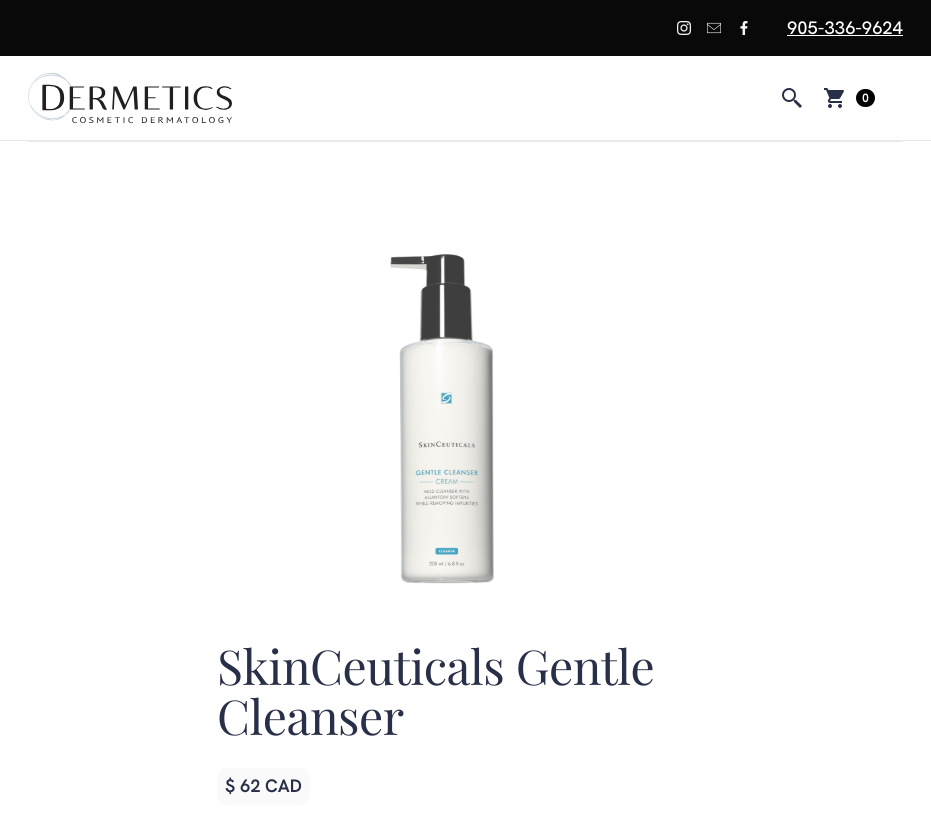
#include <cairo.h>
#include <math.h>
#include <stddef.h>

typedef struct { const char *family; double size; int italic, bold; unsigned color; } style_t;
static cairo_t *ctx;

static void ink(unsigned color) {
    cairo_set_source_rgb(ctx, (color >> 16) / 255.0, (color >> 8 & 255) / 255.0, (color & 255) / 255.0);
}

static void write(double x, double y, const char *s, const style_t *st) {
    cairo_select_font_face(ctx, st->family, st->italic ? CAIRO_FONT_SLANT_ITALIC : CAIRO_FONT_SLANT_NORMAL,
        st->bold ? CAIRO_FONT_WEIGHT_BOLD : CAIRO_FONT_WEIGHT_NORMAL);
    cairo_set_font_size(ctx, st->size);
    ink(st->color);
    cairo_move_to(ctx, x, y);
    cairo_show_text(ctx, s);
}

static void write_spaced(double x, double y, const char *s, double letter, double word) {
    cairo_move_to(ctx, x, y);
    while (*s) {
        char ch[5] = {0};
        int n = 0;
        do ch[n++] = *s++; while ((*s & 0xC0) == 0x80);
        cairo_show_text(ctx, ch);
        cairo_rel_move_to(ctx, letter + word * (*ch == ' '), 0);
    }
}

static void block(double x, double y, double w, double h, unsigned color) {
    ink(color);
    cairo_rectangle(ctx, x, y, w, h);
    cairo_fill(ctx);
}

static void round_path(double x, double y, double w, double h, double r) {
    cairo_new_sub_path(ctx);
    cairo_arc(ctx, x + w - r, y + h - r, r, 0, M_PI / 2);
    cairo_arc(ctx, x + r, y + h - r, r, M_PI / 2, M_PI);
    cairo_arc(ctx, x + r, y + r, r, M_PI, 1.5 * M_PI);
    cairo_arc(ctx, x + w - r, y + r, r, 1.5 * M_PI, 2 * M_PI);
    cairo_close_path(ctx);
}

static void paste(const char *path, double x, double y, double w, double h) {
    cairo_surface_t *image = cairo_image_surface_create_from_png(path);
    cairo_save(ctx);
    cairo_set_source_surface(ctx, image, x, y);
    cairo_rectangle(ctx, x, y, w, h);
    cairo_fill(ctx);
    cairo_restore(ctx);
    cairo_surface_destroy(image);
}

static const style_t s1 = {"Hanken Grotesk SemiBold", 18, 0, 0, 0xffffff};
static const style_t s2 = {"Hanken Grotesk", 12, 0, 1, 0xffffff};
static const style_t s3 = {"Hanken Grotesk", 18, 0, 1, 0x282f48};

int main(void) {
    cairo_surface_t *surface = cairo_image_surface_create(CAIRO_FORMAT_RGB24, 931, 825);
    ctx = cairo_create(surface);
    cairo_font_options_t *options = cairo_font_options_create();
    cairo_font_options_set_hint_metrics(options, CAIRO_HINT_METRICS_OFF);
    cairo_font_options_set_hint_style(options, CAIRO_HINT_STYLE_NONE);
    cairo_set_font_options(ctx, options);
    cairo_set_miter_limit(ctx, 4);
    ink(0xffffff);
    cairo_paint(ctx);
    block(0, 0, 931, 56, 0x090909);
    paste("pic1.png", 677, 21, 14, 14);
    paste("pic2.png", 707, 22, 14, 12);
    paste("pic3.png", 740, 21, 8, 14);
    write(787, 34, "905-336-9624", &s1);
    block(787, 35, 116, 1, 0xffffff);
    block(0, 140, 931, 1, 0xeaeaed);
    paste("pic4.png", 28, 73, 204, 50);
    paste("pic5.png", 782, 88, 20, 20);
    paste("pic6.png", 824, 88, 20, 20);
    ink(0x000000);
    round_path(856, 89, 19, 18, 9);
    cairo_fill(ctx);
    write(862, 102, "0", &s2);
    block(28, 141, 875, 1, 0xeaeaed);
    paste("pic7.png", 390, 254, 104, 330);
    cairo_select_font_face(ctx, "Playfair Display", CAIRO_FONT_SLANT_NORMAL, CAIRO_FONT_WEIGHT_NORMAL);
    cairo_set_font_size(ctx, 48);
    ink(0x282f48);
    write_spaced(217, 685, "SkinCeuticals Gentle", -0.5, 0);
    write_spaced(217, 735, "Cleanser", -0.5, 0);
    ink(0xfafafa);
    round_path(217, 768, 93, 37, 10);
    cairo_fill(ctx);
    write(225, 792, "$ 62 CAD", &s3);
    cairo_surface_write_to_png(surface, "screenshot.png");
    cairo_font_options_destroy(options);
    cairo_destroy(ctx);
    cairo_surface_destroy(surface);
    return 0;
}
